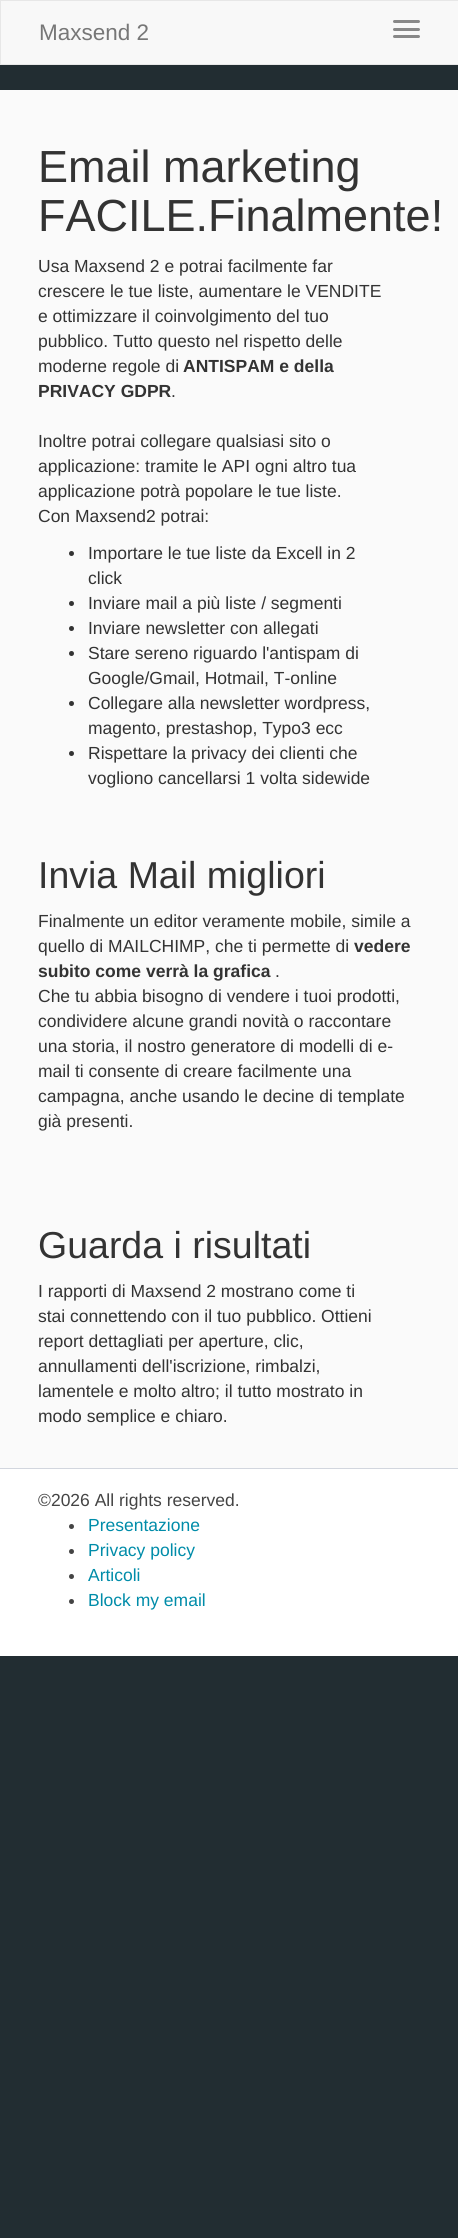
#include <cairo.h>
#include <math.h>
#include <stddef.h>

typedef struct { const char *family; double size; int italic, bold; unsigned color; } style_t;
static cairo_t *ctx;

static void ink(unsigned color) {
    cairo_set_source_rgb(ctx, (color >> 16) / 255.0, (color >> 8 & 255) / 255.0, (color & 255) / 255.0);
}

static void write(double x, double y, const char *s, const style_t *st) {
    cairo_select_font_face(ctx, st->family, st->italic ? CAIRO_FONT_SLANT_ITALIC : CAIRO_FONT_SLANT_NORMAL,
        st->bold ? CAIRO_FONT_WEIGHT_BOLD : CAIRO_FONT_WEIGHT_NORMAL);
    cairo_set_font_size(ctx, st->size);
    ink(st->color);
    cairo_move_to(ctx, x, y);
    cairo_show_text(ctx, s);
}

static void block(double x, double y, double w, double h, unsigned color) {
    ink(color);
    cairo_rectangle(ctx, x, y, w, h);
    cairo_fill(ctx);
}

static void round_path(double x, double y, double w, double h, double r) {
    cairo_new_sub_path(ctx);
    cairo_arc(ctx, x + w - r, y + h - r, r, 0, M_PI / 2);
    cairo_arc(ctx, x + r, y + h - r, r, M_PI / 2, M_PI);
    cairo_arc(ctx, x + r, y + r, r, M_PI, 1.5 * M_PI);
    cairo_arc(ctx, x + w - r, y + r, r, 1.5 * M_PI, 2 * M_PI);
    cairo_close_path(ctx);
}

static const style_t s1 = {"Liberation Sans", 22.5, 0, 0, 0x777777};
static const style_t s2 = {"Liberation Sans", 45, 0, 0, 0x333333};
static const style_t s3 = {"Liberation Sans", 17.5, 0, 0, 0x333333};
static const style_t s4 = {"Liberation Sans", 17.5, 0, 1, 0x333333};
static const style_t s5 = {"Liberation Sans", 37.5, 0, 0, 0x333333};
static const style_t s6 = {"Liberation Sans", 17.5, 0, 0, 0x444444};
static const style_t s7 = {"Liberation Sans", 17.5, 0, 0, 0x008ca9};

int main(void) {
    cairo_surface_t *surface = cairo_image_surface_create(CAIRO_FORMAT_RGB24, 458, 2238);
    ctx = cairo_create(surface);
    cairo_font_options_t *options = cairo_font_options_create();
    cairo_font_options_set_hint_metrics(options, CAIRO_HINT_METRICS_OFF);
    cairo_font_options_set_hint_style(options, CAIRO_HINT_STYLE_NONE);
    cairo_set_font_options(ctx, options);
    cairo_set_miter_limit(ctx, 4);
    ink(0x222d32);
    cairo_paint(ctx);
    ink(0xf8f8f8);
    cairo_rectangle(ctx, 0.5, 0.5, 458, 64);
    cairo_fill_preserve(ctx);
    ink(0xe7e7e7);
    cairo_set_line_width(ctx, 1);
    cairo_stroke(ctx);
    write(39, 40, "Maxsend 2", &s1);
    ink(0x888888);
    round_path(393, 20, 27, 3, 1.5);
    cairo_fill(ctx);
    round_path(393, 28, 27, 3, 1.5);
    cairo_fill(ctx);
    round_path(393, 35, 27, 3, 1.5);
    cairo_fill(ctx);
    block(0, 90, 458, 1378, 0xfafafa);
    write(38, 182, "Email marketing", &s2);
    write(38, 231, "FACILE.Finalmente!", &s2);
    write(38, 272, "Usa Maxsend 2 e potrai facilmente far", &s3);
    write(38, 297, "crescere le tue liste, aumentare le VENDITE", &s3);
    write(38, 322, "e ottimizzare il coinvolgimento del tuo", &s3);
    write(38, 347, "pubblico. Tutto questo nel rispetto delle", &s3);
    write(38, 372, "moderne regole di", &s3);
    write(183, 372, "ANTISPAM e della", &s4);
    write(38, 397, "PRIVACY GDPR", &s4);
    write(171, 397, ".", &s3);
    write(38, 447, "Inoltre potrai collegare qualsiasi sito o", &s3);
    write(38, 472, "applicazione: tramite le API ogni altro tua", &s3);
    write(38, 497, "applicazione potrà popolare le tue liste.", &s3);
    write(38, 522, "Con Maxsend2 potrai:", &s3);
    cairo_new_path(ctx);
    cairo_arc(ctx, 71.5, 553.5, 2.5, 0, 2 * M_PI);
    cairo_fill(ctx);
    write(88, 559, "Importare le tue liste da Excell in 2", &s3);
    write(88, 584, "click", &s3);
    cairo_new_path(ctx);
    cairo_arc(ctx, 71.5, 603.5, 2.5, 0, 2 * M_PI);
    cairo_fill(ctx);
    write(88, 609, "Inviare mail a più liste / segmenti", &s3);
    cairo_new_path(ctx);
    cairo_arc(ctx, 71.5, 628.5, 2.5, 0, 2 * M_PI);
    cairo_fill(ctx);
    write(88, 634, "Inviare newsletter con allegati", &s3);
    cairo_new_path(ctx);
    cairo_arc(ctx, 71.5, 653.5, 2.5, 0, 2 * M_PI);
    cairo_fill(ctx);
    write(88, 659, "Stare sereno riguardo l'antispam di", &s3);
    write(88, 684, "Google/Gmail, Hotmail, T-online", &s3);
    cairo_new_path(ctx);
    cairo_arc(ctx, 71.5, 703.5, 2.5, 0, 2 * M_PI);
    cairo_fill(ctx);
    write(88, 709, "Collegare alla newsletter wordpress,", &s3);
    write(88, 734, "magento, prestashop, Typo3 ecc", &s3);
    cairo_new_path(ctx);
    cairo_arc(ctx, 71.5, 753.5, 2.5, 0, 2 * M_PI);
    cairo_fill(ctx);
    write(88, 759, "Rispettare la privacy dei clienti che", &s3);
    write(88, 784, "vogliono cancellarsi 1 volta sidewide", &s3);
    write(38, 888, "Invia Mail migliori", &s5);
    write(38, 927, "Finalmente un editor veramente mobile, simile a", &s3);
    write(38, 952, "quello di MAILCHIMP, che ti permette di", &s3);
    write(354, 952, "vedere", &s4);
    write(38, 977, "subito come verrà la grafica", &s4);
    write(275, 977, ".", &s3);
    write(38, 1002, "Che tu abbia bisogno di vendere i tuoi prodotti,", &s3);
    write(38, 1027, "condividere alcune grandi novità o raccontare", &s3);
    write(38, 1052, "una storia, il nostro generatore di modelli di e-", &s3);
    write(38, 1077, "mail ti consente di creare facilmente una", &s3);
    write(38, 1102, "campagna, anche usando le decine di template", &s3);
    write(38, 1127, "già presenti.", &s3);
    write(38, 1258, "Guarda i risultati", &s5);
    write(38, 1297, "I rapporti di Maxsend 2 mostrano come ti", &s3);
    write(38, 1322, "stai connettendo con il tuo pubblico. Ottieni", &s3);
    write(38, 1347, "report dettagliati per aperture, clic,", &s3);
    write(38, 1372, "annullamenti dell'iscrizione, rimbalzi,", &s3);
    write(38, 1397, "lamentele e molto altro; il tutto mostrato in", &s3);
    write(38, 1422, "modo semplice e chiaro.", &s3);
    block(0, 1469, 458, 187, 0xffffff);
    block(0, 1468, 458, 1, 0xd2d6de);
    write(38, 1506, "©2026 All rights reserved.", &s6);
    cairo_new_path(ctx);
    cairo_arc(ctx, 71.5, 1526.5, 2.5, 0, 2 * M_PI);
    cairo_fill(ctx);
    write(88, 1531, "Presentazione", &s7);
    ink(0x444444);
    cairo_new_path(ctx);
    cairo_arc(ctx, 71.5, 1551.5, 2.5, 0, 2 * M_PI);
    cairo_fill(ctx);
    write(88, 1556, "Privacy policy", &s7);
    ink(0x444444);
    cairo_new_path(ctx);
    cairo_arc(ctx, 71.5, 1576.5, 2.5, 0, 2 * M_PI);
    cairo_fill(ctx);
    write(88, 1581, "Articoli", &s7);
    ink(0x444444);
    cairo_new_path(ctx);
    cairo_arc(ctx, 71.5, 1601.5, 2.5, 0, 2 * M_PI);
    cairo_fill(ctx);
    write(88, 1606, "Block my email", &s7);
    cairo_surface_write_to_png(surface, "screenshot.png");
    cairo_font_options_destroy(options);
    cairo_destroy(ctx);
    cairo_surface_destroy(surface);
    return 0;
}
